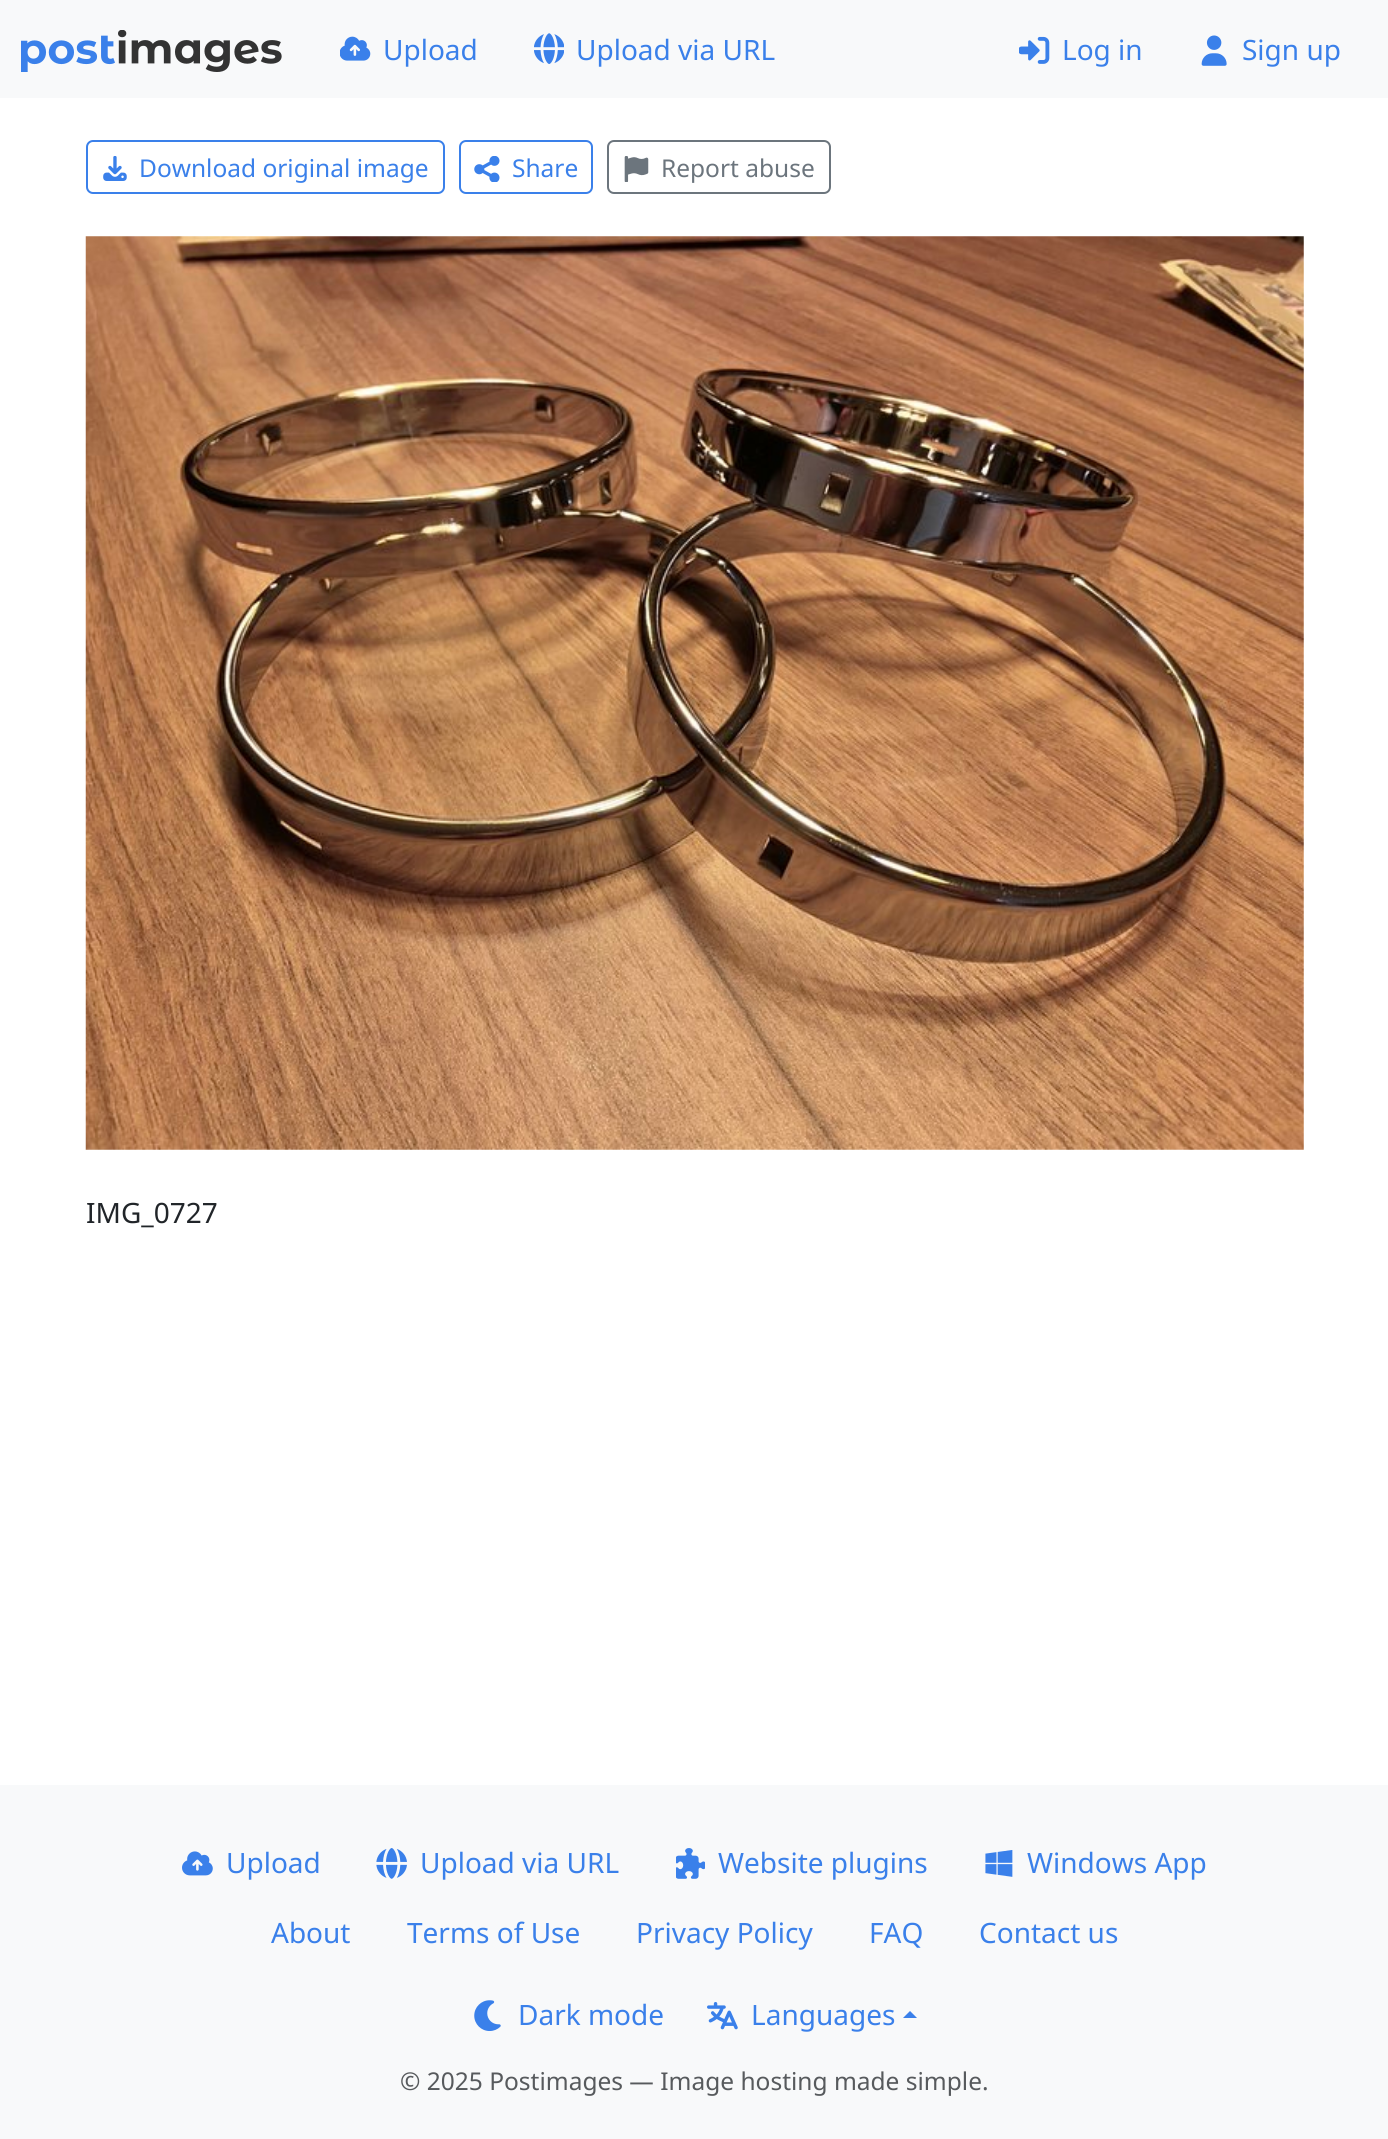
#include <cairo.h>
#include <math.h>
#include <stddef.h>

typedef struct { const char *family; double size; int italic, bold; unsigned color; } style_t;
static cairo_t *ctx;

static void ink(unsigned color) {
    cairo_set_source_rgb(ctx, (color >> 16) / 255.0, (color >> 8 & 255) / 255.0, (color & 255) / 255.0);
}

static void write(double x, double y, const char *s, const style_t *st) {
    cairo_select_font_face(ctx, st->family, st->italic ? CAIRO_FONT_SLANT_ITALIC : CAIRO_FONT_SLANT_NORMAL,
        st->bold ? CAIRO_FONT_WEIGHT_BOLD : CAIRO_FONT_WEIGHT_NORMAL);
    cairo_set_font_size(ctx, st->size);
    ink(st->color);
    cairo_move_to(ctx, x, y);
    cairo_show_text(ctx, s);
}

static void block(double x, double y, double w, double h, unsigned color) {
    ink(color);
    cairo_rectangle(ctx, x, y, w, h);
    cairo_fill(ctx);
}

static void round_path(double x, double y, double w, double h, double r) {
    cairo_new_sub_path(ctx);
    cairo_arc(ctx, x + w - r, y + h - r, r, 0, M_PI / 2);
    cairo_arc(ctx, x + r, y + h - r, r, M_PI / 2, M_PI);
    cairo_arc(ctx, x + r, y + r, r, M_PI, 1.5 * M_PI);
    cairo_arc(ctx, x + w - r, y + r, r, 1.5 * M_PI, 2 * M_PI);
    cairo_close_path(ctx);
}

static void paste(const char *path, double x, double y, double w, double h) {
    cairo_surface_t *image = cairo_image_surface_create_from_png(path);
    cairo_save(ctx);
    cairo_set_source_surface(ctx, image, x, y);
    cairo_rectangle(ctx, x, y, w, h);
    cairo_fill(ctx);
    cairo_restore(ctx);
    cairo_surface_destroy(image);
}

static const style_t s1 = {"Noto Sans", 28, 0, 0, 0x3a80ea};
static const style_t s2 = {"Noto Sans", 24.5, 0, 0, 0x3a80ea};
static const style_t s3 = {"Noto Sans", 24.5, 0, 0, 0x6c757d};
static const style_t s4 = {"Noto Sans", 28, 0, 0, 0x212529};
static const style_t s5 = {"Noto Sans", 24.5, 0, 0, 0x575a5d};

int main(void) {
    cairo_surface_t *surface = cairo_image_surface_create(CAIRO_FORMAT_RGB24, 1388, 2139);
    ctx = cairo_create(surface);
    cairo_font_options_t *options = cairo_font_options_create();
    cairo_font_options_set_hint_metrics(options, CAIRO_HINT_METRICS_OFF);
    cairo_font_options_set_hint_style(options, CAIRO_HINT_STYLE_NONE);
    cairo_set_font_options(ctx, options);
    cairo_set_miter_limit(ctx, 4);
    ink(0xffffff);
    cairo_paint(ctx);
    block(0, 0, 1388, 98, 0xf8f9fa);
    paste("pic1.png", 21, 30, 261, 42);
    paste("pic2.png", 340, 36, 31, 25);
    write(383, 60, "Upload", &s1);
    paste("pic3.png", 534, 33, 30, 31);
    write(576, 60, "Upload via URL", &s1);
    paste("pic4.png", 1019, 36, 31, 28);
    write(1062, 60, "Log in", &s1);
    paste("pic5.png", 1201, 35, 26, 31);
    write(1242, 60, "Sign up", &s1);
    round_path(87, 141, 357, 52, 6);
    cairo_stroke(ctx);
    paste("pic6.png", 103, 156, 24, 25);
    write(139, 177, "Download original image", &s2);
    round_path(460, 141, 132, 52, 6);
    cairo_stroke(ctx);
    paste("pic7.png", 474, 156, 26, 26);
    write(512, 177, "Share", &s2);
    round_path(608, 141, 222, 52, 6);
    ink(0x6c757d);
    cairo_stroke(ctx);
    paste("pic8.png", 624, 156, 25, 26);
    write(661, 177, "Report abuse", &s3);
    paste("pic9.png", 85, 236, 1219, 914);
    write(86, 1223, "IMG_0727", &s4);
    block(0, 1785, 1388, 354, 0xf8f9fa);
    paste("pic10.png", 182, 1851, 31, 25);
    write(226, 1873, "Upload", &s1);
    paste("pic11.png", 376, 1848, 31, 31);
    write(420, 1873, "Upload via URL", &s1);
    paste("pic12.png", 676, 1848, 29, 31);
    write(718, 1873, "Website plugins", &s1);
    paste("pic13.png", 985, 1850, 28, 27);
    write(1027, 1873, "Windows App", &s1);
    write(271, 1943, "About", &s1);
    write(407, 1943, "Terms of Use", &s1);
    write(636, 1943, "Privacy Policy", &s1);
    write(869, 1943, "FAQ", &s1);
    write(979, 1943, "Contact us", &s1);
    paste("pic14.png", 474, 2000, 27, 31);
    write(518, 2025, "Dark mode", &s1);
    paste("pic15.png", 707, 2002, 31, 28);
    write(751, 2025, "Languages", &s1);
    cairo_new_path(ctx);
    cairo_move_to(ctx, 917, 2018);
    cairo_line_to(ctx, 903, 2018);
    cairo_line_to(ctx, 910, 2011);
    cairo_close_path(ctx);
    cairo_fill(ctx);
    write(400, 2090, "© 2025 Postimages — Image hosting made simple.", &s5);
    cairo_surface_write_to_png(surface, "screenshot.png");
    cairo_font_options_destroy(options);
    cairo_destroy(ctx);
    cairo_surface_destroy(surface);
    return 0;
}
